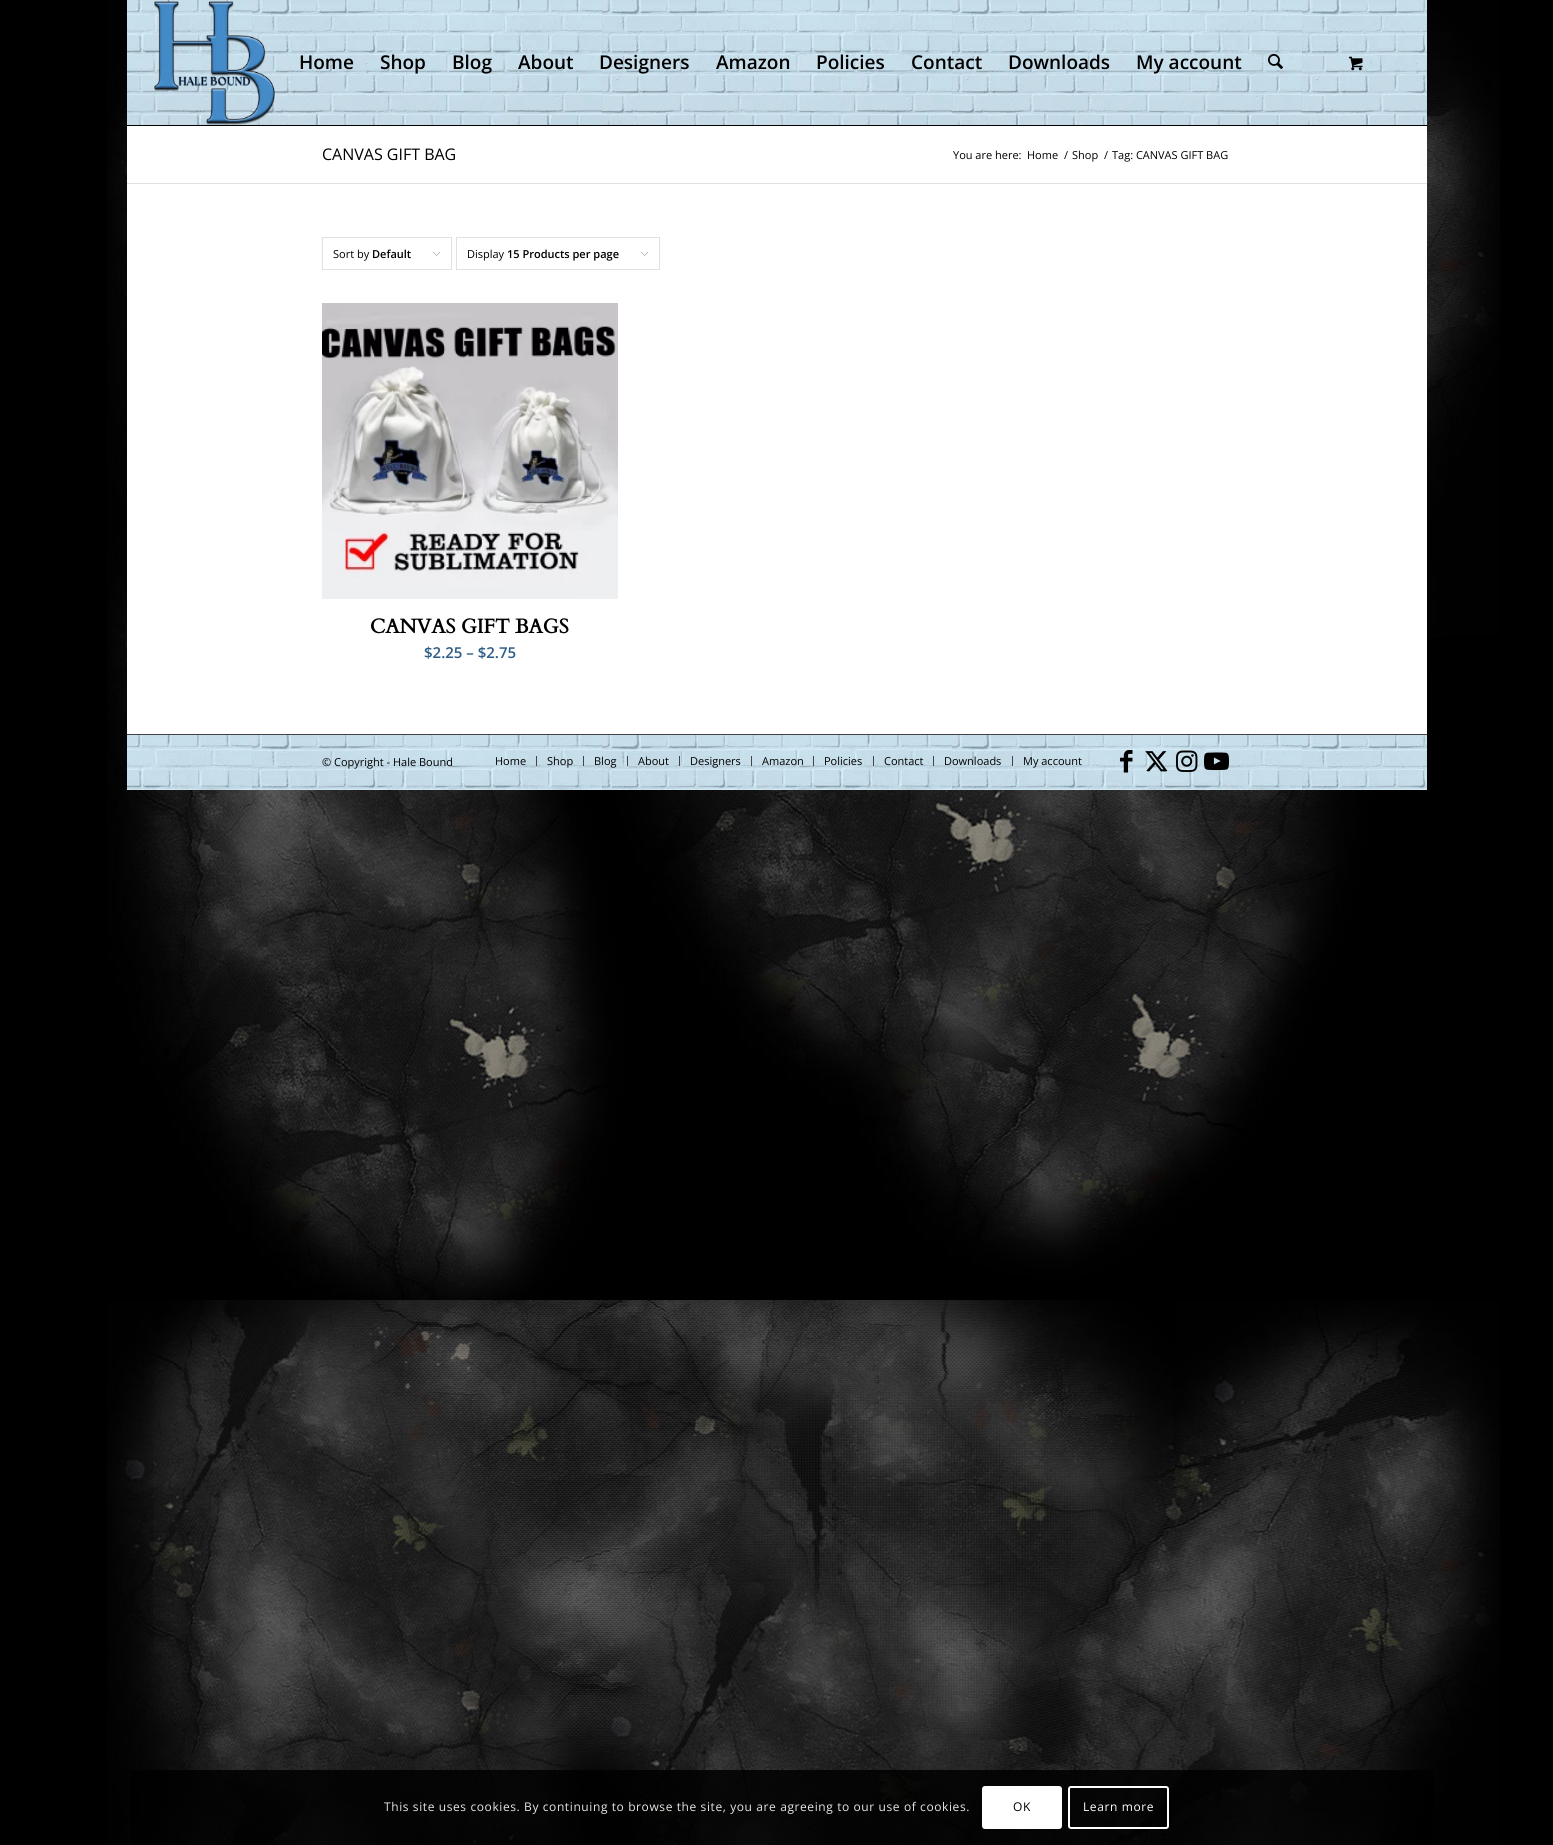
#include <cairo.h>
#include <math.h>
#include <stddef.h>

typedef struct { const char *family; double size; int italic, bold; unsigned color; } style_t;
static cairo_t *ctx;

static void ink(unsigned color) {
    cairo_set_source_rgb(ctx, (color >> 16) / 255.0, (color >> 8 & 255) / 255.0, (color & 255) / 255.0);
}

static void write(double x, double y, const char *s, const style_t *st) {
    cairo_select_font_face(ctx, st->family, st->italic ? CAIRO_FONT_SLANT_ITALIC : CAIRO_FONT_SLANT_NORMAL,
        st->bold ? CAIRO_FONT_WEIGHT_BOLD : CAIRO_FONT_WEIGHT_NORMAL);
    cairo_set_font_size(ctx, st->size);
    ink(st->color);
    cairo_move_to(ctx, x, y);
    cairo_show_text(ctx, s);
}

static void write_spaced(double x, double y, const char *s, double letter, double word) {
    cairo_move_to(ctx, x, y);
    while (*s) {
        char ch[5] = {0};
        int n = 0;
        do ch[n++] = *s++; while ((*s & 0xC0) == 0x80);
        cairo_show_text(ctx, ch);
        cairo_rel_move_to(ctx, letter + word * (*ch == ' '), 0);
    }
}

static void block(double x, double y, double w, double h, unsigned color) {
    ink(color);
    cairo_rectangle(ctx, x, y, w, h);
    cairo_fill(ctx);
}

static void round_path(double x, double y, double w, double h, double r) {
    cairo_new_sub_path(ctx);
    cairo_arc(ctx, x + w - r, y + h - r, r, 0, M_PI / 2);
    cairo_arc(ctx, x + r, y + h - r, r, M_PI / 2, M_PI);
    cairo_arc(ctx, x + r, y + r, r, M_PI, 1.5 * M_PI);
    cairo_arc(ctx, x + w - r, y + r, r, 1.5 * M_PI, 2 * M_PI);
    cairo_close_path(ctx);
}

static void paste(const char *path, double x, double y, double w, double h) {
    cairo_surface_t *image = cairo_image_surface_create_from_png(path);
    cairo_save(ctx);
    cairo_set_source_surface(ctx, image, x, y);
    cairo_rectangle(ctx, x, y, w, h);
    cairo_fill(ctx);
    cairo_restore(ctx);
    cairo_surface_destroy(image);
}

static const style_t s1 = {"Open Sans SemiBold", 19, 0, 0, 0x000000};
static const style_t s2 = {"Open Sans", 16, 0, 0, 0x000000};
static const style_t s3 = {"Open Sans", 11, 0, 0, 0x000000};
static const style_t s4 = {"Open Sans SemiBold", 11, 0, 0, 0x000000};
static const style_t s5 = {"Cardo", 20, 0, 1, 0x000000};
static const style_t s6 = {"Open Sans SemiBold", 15, 0, 0, 0x2d5c88};

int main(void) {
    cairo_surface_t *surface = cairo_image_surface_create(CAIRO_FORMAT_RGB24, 1553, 1845);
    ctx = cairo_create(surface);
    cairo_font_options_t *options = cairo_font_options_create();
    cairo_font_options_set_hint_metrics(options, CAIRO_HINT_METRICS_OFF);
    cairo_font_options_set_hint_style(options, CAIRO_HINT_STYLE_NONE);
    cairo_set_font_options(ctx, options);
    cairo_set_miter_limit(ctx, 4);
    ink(0x000000);
    cairo_paint(ctx);
    paste("pic1.png", 107, 0, 1393, 1845);
    paste("pic2.png", 127, 0, 1300, 125);
    block(127, 125, 1300, 1, 0x000000);
    paste("pic3.png", 154, 1, 121, 124);
    write(299, 69, "Home", &s1);
    write(380, 69, "Shop", &s1);
    write(452, 69, "Blog", &s1);
    write(518, 69, "About", &s1);
    write(599, 69, "Designers", &s1);
    write(716, 69, "Amazon", &s1);
    write(816, 69, "Policies", &s1);
    write(911, 69, "Contact", &s1);
    write(1008, 69, "Downloads", &s1);
    write(1136, 69, "My account", &s1);
    paste("pic4.png", 1268, 54, 15, 15);
    paste("pic5.png", 1349, 56, 14, 15);
    block(127, 126, 1300, 608, 0xffffff);
    write(322, 160, "CANVAS GIFT BAG", &s2);
    write(953, 159, "You are here:", &s3);
    write(1027, 159, "Home", &s3);
    write(1064, 159, "/", &s3);
    write(1072, 159, "Shop", &s3);
    write(1104, 159, "/", &s3);
    write(1112, 159, "Tag: CANVAS GIFT BAG", &s3);
    block(127, 183, 1300, 1, 0xe1e1e1);
    paste("pic6.png", 433, 252, 7, 4);
    cairo_rectangle(ctx, 322.5, 237.5, 129, 32);
    cairo_set_line_width(ctx, 1);
    cairo_stroke(ctx);
    write(333, 258, "Sort by", &s3);
    write(372, 258, "Default", &s4);
    paste("pic6.png", 641, 252, 7, 4);
    cairo_rectangle(ctx, 456.5, 237.5, 203, 32);
    ink(0xe1e1e1);
    cairo_stroke(ctx);
    write(467, 258, "Display", &s3);
    write(507, 258, "15 Products per page", &s4);
    paste("pic7.png", 322, 303, 296, 296);
    write(370, 633, "CANVAS GIFT BAGS", &s5);
    write(424, 658, "$2.25 – $2.75", &s6);
    paste("pic8.png", 127, 735, 1300, 55);
    block(127, 734, 1300, 1, 0x444444);
    write(322, 766, "© Copyright - Hale Bound", &s3);
    write(495, 765, "Home", &s3);
    block(536, 756, 1, 10, 0x444444);
    write(547, 765, "Shop", &s3);
    block(583, 756, 1, 10, 0x444444);
    write(594, 765, "Blog", &s3);
    block(627, 756, 1, 10, 0x444444);
    write(638, 765, "About", &s3);
    block(679, 756, 1, 10, 0x444444);
    write(690, 765, "Designers", &s3);
    block(751, 756, 1, 10, 0x444444);
    write(762, 765, "Amazon", &s3);
    block(813, 756, 1, 10, 0x444444);
    write(824, 765, "Policies", &s3);
    block(873, 756, 1, 10, 0x444444);
    write(884, 765, "Contact", &s3);
    block(933, 756, 1, 10, 0x444444);
    write(944, 765, "Downloads", &s3);
    block(1012, 756, 1, 10, 0x444444);
    write(1023, 765, "My account", &s3);
    paste("pic9.png", 1120, 750, 13, 23);
    paste("pic10.png", 1145, 751, 23, 21);
    paste("pic11.png", 1176, 750, 22, 22);
    paste("pic12.png", 1204, 752, 25, 19);
    cairo_set_source_rgba(ctx, 0, 0, 0, 0.85);
    cairo_rectangle(ctx, 131, 1770, 1303, 75);
    cairo_fill(ctx);
    cairo_set_font_size(ctx, 12);
    ink(0xe6e6e6);
    write_spaced(384, 1811, "This site uses cookies. By continuing to browse the site, you are agreeing to our use of cookies.", 0.6, 0);
    ink(0xffffff);
    round_path(982, 1786, 80, 43, 3);
    cairo_fill(ctx);
    ink(0x000000);
    write_spaced(1013, 1811, "OK", 0.6, 0);
    round_path(1069, 1787, 99, 41, 2);
    ink(0xffffff);
    cairo_set_line_width(ctx, 2);
    cairo_stroke(ctx);
    write_spaced(1083, 1811, "Learn more", 0.6, 0);
    cairo_surface_write_to_png(surface, "screenshot.png");
    cairo_font_options_destroy(options);
    cairo_destroy(ctx);
    cairo_surface_destroy(surface);
    return 0;
}
